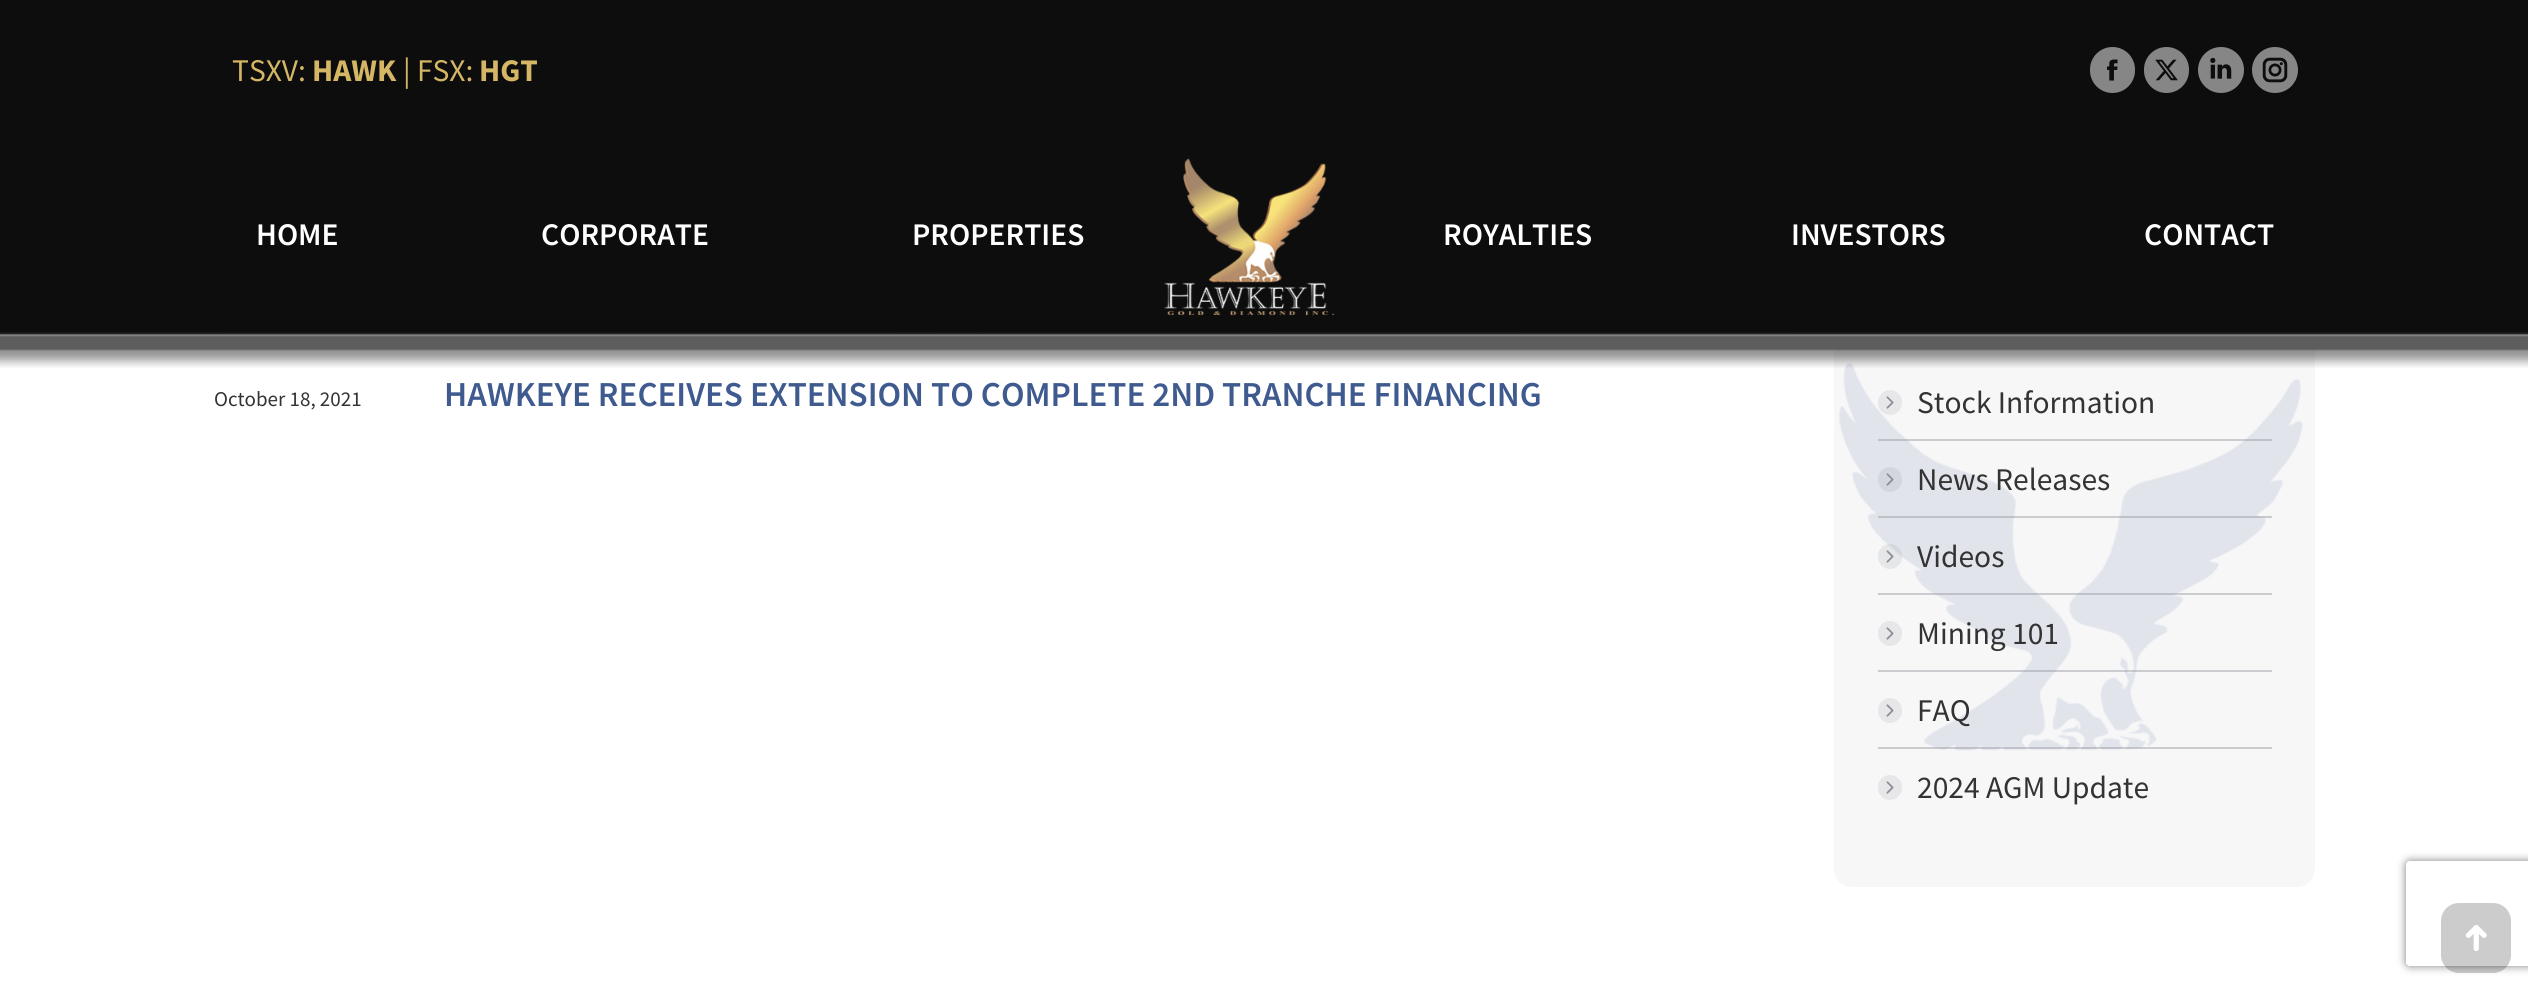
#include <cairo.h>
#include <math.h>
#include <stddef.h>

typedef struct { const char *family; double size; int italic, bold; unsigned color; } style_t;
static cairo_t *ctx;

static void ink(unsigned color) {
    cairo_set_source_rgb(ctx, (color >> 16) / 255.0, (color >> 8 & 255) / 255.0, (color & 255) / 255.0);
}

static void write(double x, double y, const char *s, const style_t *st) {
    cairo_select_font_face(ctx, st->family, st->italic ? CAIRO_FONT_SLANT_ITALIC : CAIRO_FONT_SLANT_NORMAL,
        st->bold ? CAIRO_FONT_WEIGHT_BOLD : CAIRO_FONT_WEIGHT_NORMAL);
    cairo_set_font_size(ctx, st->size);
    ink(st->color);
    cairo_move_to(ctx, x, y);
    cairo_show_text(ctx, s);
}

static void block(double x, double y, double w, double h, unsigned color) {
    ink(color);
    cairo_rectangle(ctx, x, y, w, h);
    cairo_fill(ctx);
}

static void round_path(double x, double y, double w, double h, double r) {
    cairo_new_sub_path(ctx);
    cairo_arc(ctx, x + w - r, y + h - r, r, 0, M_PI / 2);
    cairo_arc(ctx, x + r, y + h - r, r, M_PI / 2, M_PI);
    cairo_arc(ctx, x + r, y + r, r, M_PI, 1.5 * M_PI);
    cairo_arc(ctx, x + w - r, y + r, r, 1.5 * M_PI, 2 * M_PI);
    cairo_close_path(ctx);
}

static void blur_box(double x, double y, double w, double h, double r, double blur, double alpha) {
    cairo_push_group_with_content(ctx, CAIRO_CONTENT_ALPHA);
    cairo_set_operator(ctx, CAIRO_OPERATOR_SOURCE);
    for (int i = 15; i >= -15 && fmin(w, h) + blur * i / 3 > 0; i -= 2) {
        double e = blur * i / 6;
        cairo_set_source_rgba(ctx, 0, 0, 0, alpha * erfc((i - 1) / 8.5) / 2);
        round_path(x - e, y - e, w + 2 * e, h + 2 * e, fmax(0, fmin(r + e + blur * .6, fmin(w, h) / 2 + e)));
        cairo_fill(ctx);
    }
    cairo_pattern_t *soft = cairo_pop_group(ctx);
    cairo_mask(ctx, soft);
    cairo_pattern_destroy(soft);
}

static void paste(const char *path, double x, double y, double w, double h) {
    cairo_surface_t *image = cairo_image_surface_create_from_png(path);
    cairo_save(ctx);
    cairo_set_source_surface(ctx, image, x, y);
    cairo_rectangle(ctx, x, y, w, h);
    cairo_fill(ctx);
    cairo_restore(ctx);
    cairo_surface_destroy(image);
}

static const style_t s1 = {"Source Sans Pro", 31.5, 0, 0, 0xd4b664};
static const style_t s2 = {"Source Sans Pro", 31.5, 0, 1, 0xd4b664};
static const style_t s3 = {"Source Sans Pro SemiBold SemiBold", 31.5, 0, 0, 0xffffff};
static const style_t s4 = {"Source Sans Pro", 21, 0, 0, 0x333333};
static const style_t s5 = {"Source Sans Pro SemiBold SemiBold", 35, 0, 0, 0x3f5a8f};
static const style_t s6 = {"Source Sans Pro", 31.5, 0, 0, 0x333333};

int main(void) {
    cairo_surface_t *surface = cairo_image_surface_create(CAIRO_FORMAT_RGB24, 2528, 990);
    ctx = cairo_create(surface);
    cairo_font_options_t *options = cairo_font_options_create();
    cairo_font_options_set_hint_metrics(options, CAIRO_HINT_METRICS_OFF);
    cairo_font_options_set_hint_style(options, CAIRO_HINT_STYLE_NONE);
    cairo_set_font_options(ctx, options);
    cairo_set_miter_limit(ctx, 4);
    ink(0xffffff);
    cairo_paint(ctx);
    ink(0xf7f7f8);
    round_path(1834, 221, 481, 666, 18);
    cairo_fill(ctx);
    paste("pic7.png", 1839, 363, 464, 388);
    paste("pic1.png", 0, 140, 2528, 228);
    block(0, 0, 2528, 140, 0x0d0d0d);
    write(232, 81, "TSXV:", &s1);
    write(312, 81, "HAWK", &s2);
    write(403, 81, "| FSX:", &s1);
    write(479, 81, "HGT", &s2);
    ink(0x868686);
    round_path(2090, 47, 45, 46, 22.5);
    cairo_fill(ctx);
    paste("pic2.png", 2107, 59, 11, 22);
    round_path(2144, 47, 45, 46, 22.5);
    cairo_fill(ctx);
    paste("pic3.png", 2155, 59, 23, 22);
    cairo_arc(ctx, 2221, 70, 23, 0, 2 * M_PI);
    cairo_fill(ctx);
    paste("pic4.png", 2210, 57, 22, 22);
    cairo_arc(ctx, 2275, 70, 23, 0, 2 * M_PI);
    cairo_fill(ctx);
    paste("pic5.png", 2262, 57, 26, 26);
    write(256, 245, "HOME", &s3);
    write(541, 245, "CORPORATE", &s3);
    write(912, 245, "PROPERTIES", &s3);
    paste("pic6.png", 1164, 158, 171, 158);
    write(1443, 245, "ROYALTIES", &s3);
    write(1791, 245, "INVESTORS", &s3);
    write(2144, 245, "CONTACT", &s3);
    write(214, 406, "October 18, 2021", &s4);
    write(444, 406, "HAWKEYE RECEIVES EXTENSION TO COMPLETE 2ND TRANCHE FINANCING", &s5);
    ink(0xe7e7e9);
    round_path(1878, 390, 24, 25, 12);
    cairo_fill(ctx);
    write(1917, 413, "Stock Information", &s6);
    paste("pic8.png", 1886, 396, 8, 13);
    cairo_set_source_rgba(ctx, 0.545, 0.553, 0.58, 0.4);
    cairo_rectangle(ctx, 1878, 439, 394, 2);
    cairo_fill(ctx);
    ink(0xd4d6de);
    round_path(1878, 467, 24, 25, 12);
    cairo_fill(ctx);
    write(1917, 490, "News Releases", &s6);
    paste("pic9.png", 1886, 473, 8, 13);
    cairo_set_source_rgba(ctx, 0.545, 0.553, 0.58, 0.4);
    cairo_rectangle(ctx, 1878, 516, 394, 2);
    cairo_fill(ctx);
    cairo_set_source_rgba(ctx, 0.545, 0.553, 0.58, 0.15);
    round_path(1878, 544, 24, 25, 12);
    cairo_fill(ctx);
    write(1917, 567, "Videos", &s6);
    paste("pic10.png", 1886, 550, 8, 13);
    cairo_set_source_rgba(ctx, 0.545, 0.553, 0.58, 0.4);
    cairo_rectangle(ctx, 1878, 593, 394, 2);
    cairo_fill(ctx);
    ink(0xe7e7e9);
    round_path(1878, 621, 24, 25, 12);
    cairo_fill(ctx);
    write(1917, 644, "Mining 101", &s6);
    paste("pic8.png", 1886, 627, 8, 13);
    cairo_set_source_rgba(ctx, 0.545, 0.553, 0.58, 0.4);
    cairo_rectangle(ctx, 1878, 670, 394, 2);
    cairo_fill(ctx);
    ink(0xe7e7e9);
    round_path(1878, 698, 24, 25, 12);
    cairo_fill(ctx);
    write(1917, 721, "FAQ", &s6);
    paste("pic8.png", 1886, 704, 8, 13);
    cairo_set_source_rgba(ctx, 0.545, 0.553, 0.58, 0.4);
    cairo_rectangle(ctx, 1878, 747, 394, 2);
    cairo_fill(ctx);
    ink(0xe7e7e9);
    round_path(1878, 775, 24, 25, 12);
    cairo_fill(ctx);
    write(1917, 798, "2024 AGM Update", &s6);
    paste("pic8.png", 1886, 781, 8, 13);
    cairo_save(ctx);
    cairo_set_fill_rule(ctx, CAIRO_FILL_RULE_EVEN_ODD);
    cairo_new_path(ctx);
    cairo_move_to(ctx, 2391, 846);
    cairo_line_to(ctx, 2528, 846);
    cairo_line_to(ctx, 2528, 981);
    cairo_line_to(ctx, 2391, 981);
    cairo_close_path(ctx);
    cairo_move_to(ctx, 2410, 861);
    cairo_line_to(ctx, 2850, 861);
    cairo_curve_to(ctx, 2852, 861, 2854, 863, 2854, 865);
    cairo_line_to(ctx, 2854, 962);
    cairo_curve_to(ctx, 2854, 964, 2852, 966, 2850, 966);
    cairo_line_to(ctx, 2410, 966);
    cairo_curve_to(ctx, 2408, 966, 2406, 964, 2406, 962);
    cairo_line_to(ctx, 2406, 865);
    cairo_curve_to(ctx, 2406, 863, 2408, 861, 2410, 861);
    cairo_close_path(ctx);
    cairo_clip(ctx);
    ink(0x808080);
    blur_box(2406, 861, 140, 105, 4, 4.5, 1);
    cairo_restore(ctx);
    cairo_set_source_rgba(ctx, 0, 0, 0, 0.2);
    round_path(2441, 903, 70, 70, 18);
    cairo_fill(ctx);
    paste("pic11.png", 2465, 925, 22, 26);
    cairo_surface_write_to_png(surface, "screenshot.png");
    cairo_font_options_destroy(options);
    cairo_destroy(ctx);
    cairo_surface_destroy(surface);
    return 0;
}
